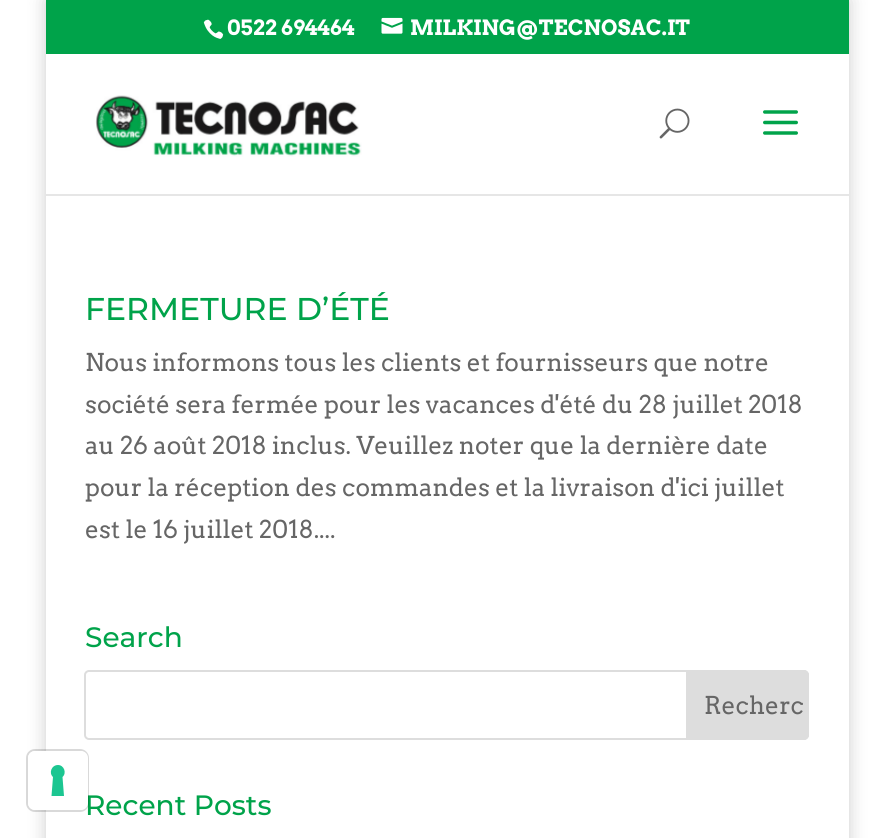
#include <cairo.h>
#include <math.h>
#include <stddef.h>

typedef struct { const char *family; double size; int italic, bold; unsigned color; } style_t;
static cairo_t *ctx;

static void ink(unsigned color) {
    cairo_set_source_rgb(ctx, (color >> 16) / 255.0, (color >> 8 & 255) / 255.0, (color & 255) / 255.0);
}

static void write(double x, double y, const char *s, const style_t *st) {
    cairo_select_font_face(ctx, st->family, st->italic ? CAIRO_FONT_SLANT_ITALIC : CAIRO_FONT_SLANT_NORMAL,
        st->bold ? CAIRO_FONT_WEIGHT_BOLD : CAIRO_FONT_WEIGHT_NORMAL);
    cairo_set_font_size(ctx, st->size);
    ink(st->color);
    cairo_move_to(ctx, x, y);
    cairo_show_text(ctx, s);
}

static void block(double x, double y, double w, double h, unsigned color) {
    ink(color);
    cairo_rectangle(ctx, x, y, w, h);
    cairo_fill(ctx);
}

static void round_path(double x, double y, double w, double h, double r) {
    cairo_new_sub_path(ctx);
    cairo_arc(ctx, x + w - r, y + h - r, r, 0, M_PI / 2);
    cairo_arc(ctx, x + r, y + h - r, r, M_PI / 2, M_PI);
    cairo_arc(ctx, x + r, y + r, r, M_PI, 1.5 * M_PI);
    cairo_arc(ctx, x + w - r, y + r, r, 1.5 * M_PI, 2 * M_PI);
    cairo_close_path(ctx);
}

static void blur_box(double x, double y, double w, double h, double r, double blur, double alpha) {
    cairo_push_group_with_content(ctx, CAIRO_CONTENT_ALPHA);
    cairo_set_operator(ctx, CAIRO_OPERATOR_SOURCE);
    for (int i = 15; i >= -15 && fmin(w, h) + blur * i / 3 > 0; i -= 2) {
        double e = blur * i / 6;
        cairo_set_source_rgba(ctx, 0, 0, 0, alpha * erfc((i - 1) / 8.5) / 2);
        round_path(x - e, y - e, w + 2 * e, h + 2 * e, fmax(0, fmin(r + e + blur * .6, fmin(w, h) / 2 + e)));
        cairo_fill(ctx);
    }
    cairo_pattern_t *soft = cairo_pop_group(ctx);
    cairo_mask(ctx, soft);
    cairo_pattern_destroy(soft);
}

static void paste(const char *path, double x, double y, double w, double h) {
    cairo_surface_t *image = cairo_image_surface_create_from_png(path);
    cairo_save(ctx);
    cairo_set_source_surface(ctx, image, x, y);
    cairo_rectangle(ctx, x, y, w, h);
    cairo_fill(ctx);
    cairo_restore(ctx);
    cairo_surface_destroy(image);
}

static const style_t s1 = {"Montserrat Medium", 28, 0, 0, 0x00a34a};
static const style_t s2 = {"Arvo", 21, 0, 1, 0xffffff};
static const style_t s3 = {"Montserrat Medium", 31.5, 0, 0, 0x00a34a};
static const style_t s4 = {"Arvo", 24.5, 0, 0, 0x666666};

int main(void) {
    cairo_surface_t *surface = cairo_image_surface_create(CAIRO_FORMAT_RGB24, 891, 838);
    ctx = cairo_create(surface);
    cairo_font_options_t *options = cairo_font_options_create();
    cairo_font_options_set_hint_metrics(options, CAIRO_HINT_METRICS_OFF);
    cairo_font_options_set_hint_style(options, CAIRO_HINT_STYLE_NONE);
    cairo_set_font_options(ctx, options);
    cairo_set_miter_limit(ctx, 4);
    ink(0xffffff);
    cairo_paint(ctx);
    ink(0x000000);
    blur_box(46, 0, 803, 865, 0, 9, 0.2);
    block(46, 196, 803, 642, 0xffffff);
    write(85, 815, "Recent Posts", &s1);
    round_path(27, 750, 61, 61, 8);
    cairo_set_source_rgba(ctx, 0, 0, 0, 0.15);
    cairo_stroke(ctx);
    ink(0xffffff);
    round_path(28, 751, 60, 59, 7);
    cairo_fill(ctx);
    ink(0x1cc691);
    cairo_set_fill_rule(ctx, CAIRO_FILL_RULE_EVEN_ODD);
    cairo_new_path(ctx);
    cairo_move_to(ctx, 58, 765);
    cairo_curve_to(ctx, 64, 765, 67, 773, 62.5, 777);
    cairo_line_to(ctx, 64, 796);
    cairo_line_to(ctx, 51.5, 796);
    cairo_line_to(ctx, 53, 777);
    cairo_curve_to(ctx, 48.5, 773, 51.5, 765, 58, 765);
    cairo_close_path(ctx);
    cairo_fill(ctx);
    block(46, 0, 803, 54, 0x00a34a);
    paste("pic1.png", 203, 19, 21, 20);
    write(227, 35, "0522 694464", &s2);
    paste("pic2.png", 381, 17, 22, 17);
    write(410, 35, "MILKING@TECNOSAC.IT", &s2);
    ink(0xe6e6e6);
    cairo_set_fill_rule(ctx, CAIRO_FILL_RULE_WINDING);
    cairo_new_path(ctx);
    cairo_move_to(ctx, 46, 194);
    cairo_line_to(ctx, 46, 196);
    cairo_line_to(ctx, 849, 196);
    cairo_line_to(ctx, 849, 56);
    cairo_line_to(ctx, 849, 194);
    cairo_close_path(ctx);
    cairo_fill(ctx);
    block(46, 54, 803, 140, 0xffffff);
    paste("pic3.png", 95, 95, 267, 62);
    paste("pic4.png", 659, 108, 31, 31);
    paste("pic5.png", 763, 110, 35, 25);
    write(85, 320, "FERMETURE D’ÉTÉ", &s3);
    write(85, 371, "Nous informons tous les clients et fournisseurs que notre", &s4);
    write(85, 413, "société sera fermée pour les vacances d'été du 28 juillet 2018", &s4);
    write(85, 454, "au 26 août 2018 inclus. Veuillez noter que la dernière date", &s4);
    write(85, 496, "pour la réception des commandes et la livraison d'ici juillet", &s4);
    write(85, 538, "est le 16 juillet 2018....", &s4);
    write(85, 647, "Search", &s1);
    round_path(85, 671, 723, 68, 4);
    ink(0xdddddd);
    cairo_stroke(ctx);
    cairo_new_path(ctx);
    cairo_move_to(ctx, 687, 671);
    cairo_line_to(ctx, 804, 671);
    cairo_curve_to(ctx, 806, 671, 808, 673, 808, 675);
    cairo_line_to(ctx, 808, 735);
    cairo_curve_to(ctx, 808, 737, 806, 739, 804, 739);
    cairo_line_to(ctx, 687, 739);
    cairo_close_path(ctx);
    cairo_fill_preserve(ctx);
    cairo_stroke(ctx);
    write(704, 714, "Recherc", &s4);
    cairo_surface_write_to_png(surface, "screenshot.png");
    cairo_font_options_destroy(options);
    cairo_destroy(ctx);
    cairo_surface_destroy(surface);
    return 0;
}
